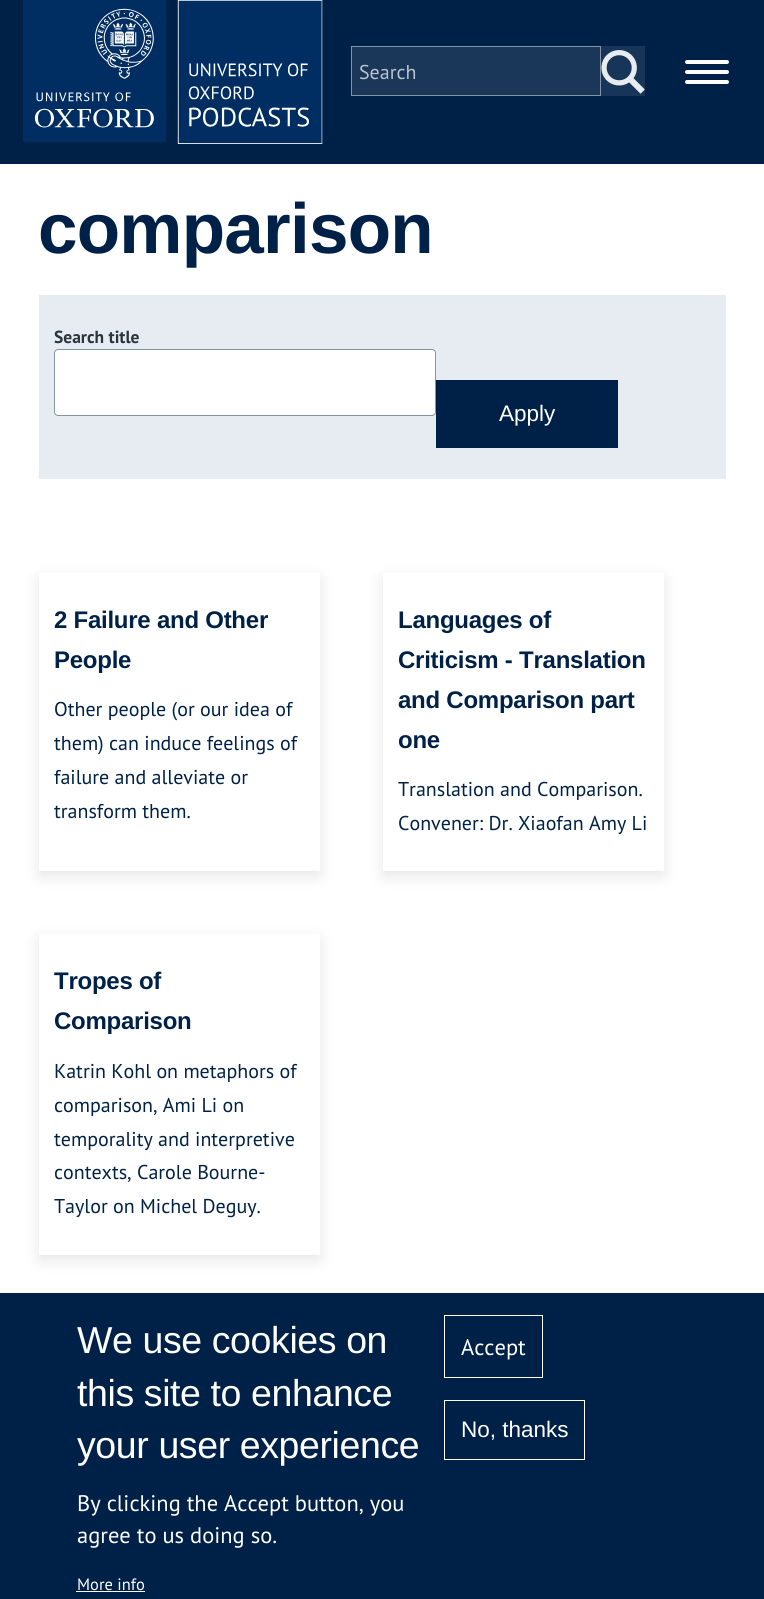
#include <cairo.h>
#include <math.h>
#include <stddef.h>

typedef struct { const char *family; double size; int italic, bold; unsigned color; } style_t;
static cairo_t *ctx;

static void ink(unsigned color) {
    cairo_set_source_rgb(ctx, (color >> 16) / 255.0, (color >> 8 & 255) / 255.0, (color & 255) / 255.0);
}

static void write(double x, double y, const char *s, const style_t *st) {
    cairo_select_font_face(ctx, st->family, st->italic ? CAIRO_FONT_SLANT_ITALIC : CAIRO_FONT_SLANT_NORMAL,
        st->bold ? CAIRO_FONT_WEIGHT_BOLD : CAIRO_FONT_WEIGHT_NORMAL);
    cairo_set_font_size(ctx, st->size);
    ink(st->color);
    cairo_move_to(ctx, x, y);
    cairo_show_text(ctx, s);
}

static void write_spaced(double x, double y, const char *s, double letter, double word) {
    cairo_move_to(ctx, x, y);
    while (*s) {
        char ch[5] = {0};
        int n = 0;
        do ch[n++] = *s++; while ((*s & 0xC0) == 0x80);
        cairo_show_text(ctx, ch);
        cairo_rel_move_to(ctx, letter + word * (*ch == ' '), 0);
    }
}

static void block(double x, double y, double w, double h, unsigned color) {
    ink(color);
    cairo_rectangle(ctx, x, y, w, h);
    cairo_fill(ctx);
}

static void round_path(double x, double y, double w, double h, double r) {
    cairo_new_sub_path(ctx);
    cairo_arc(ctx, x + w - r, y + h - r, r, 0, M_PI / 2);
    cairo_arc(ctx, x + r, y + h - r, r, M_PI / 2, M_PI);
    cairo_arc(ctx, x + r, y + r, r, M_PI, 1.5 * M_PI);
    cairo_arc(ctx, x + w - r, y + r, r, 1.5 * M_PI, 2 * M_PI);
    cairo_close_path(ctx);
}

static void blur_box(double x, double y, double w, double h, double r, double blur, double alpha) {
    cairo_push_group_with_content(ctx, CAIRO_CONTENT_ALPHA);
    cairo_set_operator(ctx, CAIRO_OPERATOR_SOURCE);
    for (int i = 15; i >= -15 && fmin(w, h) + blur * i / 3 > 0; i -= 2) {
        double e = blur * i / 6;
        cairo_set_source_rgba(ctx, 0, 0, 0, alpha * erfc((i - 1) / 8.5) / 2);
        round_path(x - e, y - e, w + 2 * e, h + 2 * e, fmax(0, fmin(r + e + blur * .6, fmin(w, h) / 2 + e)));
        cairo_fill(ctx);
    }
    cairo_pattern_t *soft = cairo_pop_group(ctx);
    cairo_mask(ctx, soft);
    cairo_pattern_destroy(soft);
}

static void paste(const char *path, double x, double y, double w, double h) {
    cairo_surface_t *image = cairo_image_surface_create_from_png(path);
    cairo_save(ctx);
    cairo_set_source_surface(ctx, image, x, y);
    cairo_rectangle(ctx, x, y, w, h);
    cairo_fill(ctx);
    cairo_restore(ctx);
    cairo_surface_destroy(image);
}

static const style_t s1 = {"PT Sans", 20, 0, 0, 0xbac3cd};
static const style_t s2 = {"PT Sans", 17.5, 0, 1, 0x2b353b};
static const style_t s3 = {"Liberation Sans", 22.5, 0, 0, 0xffffff};
static const style_t s4 = {"PT Sans", 20, 0, 0, 0x002147};
static const style_t s5 = {"PT Sans", 22.5, 0, 0, 0xffffff};
static const style_t s6 = {"PT Sans", 16.5, 0, 0, 0xffffff};

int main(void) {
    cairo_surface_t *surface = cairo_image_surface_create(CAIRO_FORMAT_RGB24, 764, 1599);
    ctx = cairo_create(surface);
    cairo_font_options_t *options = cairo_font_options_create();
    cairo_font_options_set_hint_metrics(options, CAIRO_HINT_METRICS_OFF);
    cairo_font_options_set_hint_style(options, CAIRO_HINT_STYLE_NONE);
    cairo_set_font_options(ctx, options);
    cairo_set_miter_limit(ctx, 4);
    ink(0xffffff);
    cairo_paint(ctx);
    block(0, 0, 764, 164, 0x002147);
    paste("pic1.png", 23, 0, 300, 144);
    ink(0x1a3759);
    cairo_rectangle(ctx, 351.5, 46.5, 249, 49);
    cairo_fill_preserve(ctx);
    ink(0x8196a2);
    cairo_set_line_width(ctx, 1);
    cairo_stroke(ctx);
    write(359, 79, "Search", &s1);
    block(601, 46, 44, 50, 0x173558);
    paste("pic2.png", 601, 50, 44, 44);
    ink(0xffffff);
    round_path(685, 70, 44, 4, 2);
    cairo_fill(ctx);
    round_path(685, 60, 44, 4, 2);
    cairo_fill(ctx);
    round_path(685, 80, 44, 4, 2);
    cairo_fill(ctx);
    cairo_select_font_face(ctx, "Liberation Sans", CAIRO_FONT_SLANT_NORMAL, CAIRO_FONT_WEIGHT_BOLD);
    cairo_set_font_size(ctx, 71);
    ink(0x002147);
    write_spaced(38, 253, "comparison", -0.75, 0);
    block(39, 295, 687, 184, 0xe7ecf3);
    write(54, 343, "Search title", &s2);
    ink(0xffffff);
    round_path(54.5, 349.5, 381, 66, 3.5);
    cairo_fill_preserve(ctx);
    ink(0x8196a2);
    cairo_stroke(ctx);
    block(436, 380, 182, 68, 0x002147);
    write(499, 421, "Apply", &s3);
    cairo_save(ctx);
    cairo_set_fill_rule(ctx, CAIRO_FILL_RULE_EVEN_ODD);
    cairo_new_path(ctx);
    cairo_move_to(ctx, 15, 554);
    cairo_line_to(ctx, 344, 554);
    cairo_line_to(ctx, 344, 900);
    cairo_line_to(ctx, 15, 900);
    cairo_close_path(ctx);
    cairo_move_to(ctx, 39, 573);
    cairo_line_to(ctx, 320, 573);
    cairo_line_to(ctx, 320, 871);
    cairo_line_to(ctx, 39, 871);
    cairo_close_path(ctx);
    cairo_clip(ctx);
    ink(0x000000);
    blur_box(39, 578, 281, 298, 0, 7.5, 0.1);
    cairo_restore(ctx);
    cairo_select_font_face(ctx, "Liberation Sans", CAIRO_FONT_SLANT_NORMAL, CAIRO_FONT_WEIGHT_BOLD);
    cairo_set_font_size(ctx, 24);
    ink(0x002147);
    write_spaced(54, 628, "2 Failure and Other", -0.25, 0);
    write_spaced(54, 668, "People", -0.25, 0);
    write(54, 716, "Other people (or our idea of", &s4);
    write(54, 750, "them) can induce feelings of", &s4);
    write(54, 784, "failure and alleviate or", &s4);
    write(54, 818, "transform them.", &s4);
    cairo_save(ctx);
    cairo_set_fill_rule(ctx, CAIRO_FILL_RULE_EVEN_ODD);
    cairo_new_path(ctx);
    cairo_move_to(ctx, 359, 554);
    cairo_line_to(ctx, 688, 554);
    cairo_line_to(ctx, 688, 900);
    cairo_line_to(ctx, 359, 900);
    cairo_close_path(ctx);
    cairo_move_to(ctx, 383, 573);
    cairo_line_to(ctx, 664, 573);
    cairo_line_to(ctx, 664, 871);
    cairo_line_to(ctx, 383, 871);
    cairo_close_path(ctx);
    cairo_clip(ctx);
    ink(0x000000);
    blur_box(383, 578, 281, 298, 0, 7.5, 0.1);
    cairo_restore(ctx);
    cairo_select_font_face(ctx, "Liberation Sans", CAIRO_FONT_SLANT_NORMAL, CAIRO_FONT_WEIGHT_BOLD);
    cairo_set_font_size(ctx, 24);
    write_spaced(398, 628, "Languages of", -0.25, 0);
    write_spaced(398, 668, "Criticism - Translation", -0.25, 0);
    write_spaced(398, 708, "and Comparison part", -0.25, 0);
    write_spaced(398, 748, "one", -0.25, 0);
    write(398, 796, "Translation and Comparison.", &s4);
    write(398, 830, "Convener: Dr. Xiaofan Amy Li", &s4);
    cairo_save(ctx);
    cairo_set_fill_rule(ctx, CAIRO_FILL_RULE_EVEN_ODD);
    cairo_new_path(ctx);
    cairo_move_to(ctx, 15, 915);
    cairo_line_to(ctx, 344, 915);
    cairo_line_to(ctx, 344, 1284);
    cairo_line_to(ctx, 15, 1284);
    cairo_close_path(ctx);
    cairo_move_to(ctx, 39, 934);
    cairo_line_to(ctx, 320, 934);
    cairo_line_to(ctx, 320, 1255);
    cairo_line_to(ctx, 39, 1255);
    cairo_close_path(ctx);
    cairo_clip(ctx);
    ink(0x000000);
    blur_box(39, 939, 281, 321, 0, 7.5, 0.1);
    cairo_restore(ctx);
    cairo_select_font_face(ctx, "Liberation Sans", CAIRO_FONT_SLANT_NORMAL, CAIRO_FONT_WEIGHT_BOLD);
    cairo_set_font_size(ctx, 24);
    write_spaced(54, 989, "Tropes of", -0.25, 0);
    write_spaced(54, 1029, "Comparison", -0.25, 0);
    write(54, 1078, "Katrin Kohl on metaphors of", &s4);
    write(54, 1112, "comparison, Ami Li on", &s4);
    write(54, 1146, "temporality and interpretive", &s4);
    write(54, 1179, "contexts, Carole Bourne-", &s4);
    write(54, 1213, "Taylor on Michel Deguy.", &s4);
    block(0, 1293, 764, 306, 0x002147);
    cairo_select_font_face(ctx, "Liberation Sans", CAIRO_FONT_SLANT_NORMAL, CAIRO_FONT_WEIGHT_NORMAL);
    cairo_set_font_size(ctx, 37.5);
    ink(0xffffff);
    write_spaced(77, 1353, "We use cookies on", -0.4, 0);
    write_spaced(77, 1406, "this site to enhance", -0.4, 0);
    write_spaced(77, 1458, "your user experience", -0.4, 0);
    write(77, 1511, "By clicking the Accept button, you", &s5);
    write(77, 1543, "agree to us doing so.", &s5);
    write(77, 1590, "More info", &s6);
    block(76, 1591, 69, 1, 0xffffff);
    cairo_rectangle(ctx, 444.5, 1315.5, 98, 62);
    cairo_stroke(ctx);
    write(461, 1355, "Accept", &s5);
    cairo_rectangle(ctx, 444.5, 1400.5, 140, 59);
    cairo_stroke(ctx);
    write(461, 1437, "No, thanks", &s3);
    cairo_surface_write_to_png(surface, "screenshot.png");
    cairo_font_options_destroy(options);
    cairo_destroy(ctx);
    cairo_surface_destroy(surface);
    return 0;
}
